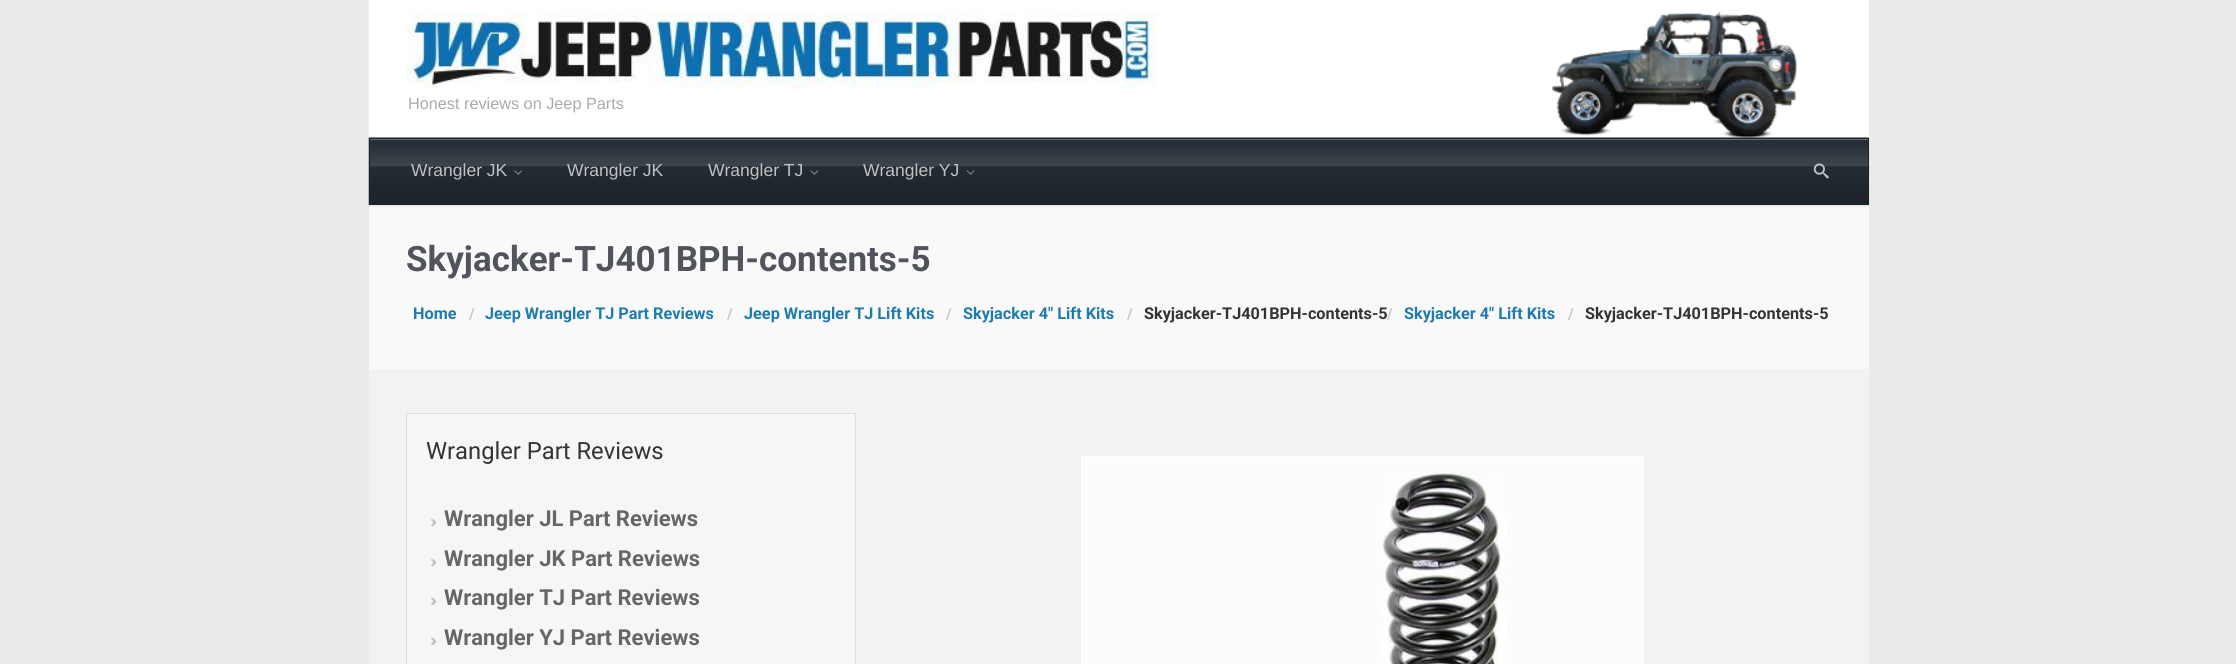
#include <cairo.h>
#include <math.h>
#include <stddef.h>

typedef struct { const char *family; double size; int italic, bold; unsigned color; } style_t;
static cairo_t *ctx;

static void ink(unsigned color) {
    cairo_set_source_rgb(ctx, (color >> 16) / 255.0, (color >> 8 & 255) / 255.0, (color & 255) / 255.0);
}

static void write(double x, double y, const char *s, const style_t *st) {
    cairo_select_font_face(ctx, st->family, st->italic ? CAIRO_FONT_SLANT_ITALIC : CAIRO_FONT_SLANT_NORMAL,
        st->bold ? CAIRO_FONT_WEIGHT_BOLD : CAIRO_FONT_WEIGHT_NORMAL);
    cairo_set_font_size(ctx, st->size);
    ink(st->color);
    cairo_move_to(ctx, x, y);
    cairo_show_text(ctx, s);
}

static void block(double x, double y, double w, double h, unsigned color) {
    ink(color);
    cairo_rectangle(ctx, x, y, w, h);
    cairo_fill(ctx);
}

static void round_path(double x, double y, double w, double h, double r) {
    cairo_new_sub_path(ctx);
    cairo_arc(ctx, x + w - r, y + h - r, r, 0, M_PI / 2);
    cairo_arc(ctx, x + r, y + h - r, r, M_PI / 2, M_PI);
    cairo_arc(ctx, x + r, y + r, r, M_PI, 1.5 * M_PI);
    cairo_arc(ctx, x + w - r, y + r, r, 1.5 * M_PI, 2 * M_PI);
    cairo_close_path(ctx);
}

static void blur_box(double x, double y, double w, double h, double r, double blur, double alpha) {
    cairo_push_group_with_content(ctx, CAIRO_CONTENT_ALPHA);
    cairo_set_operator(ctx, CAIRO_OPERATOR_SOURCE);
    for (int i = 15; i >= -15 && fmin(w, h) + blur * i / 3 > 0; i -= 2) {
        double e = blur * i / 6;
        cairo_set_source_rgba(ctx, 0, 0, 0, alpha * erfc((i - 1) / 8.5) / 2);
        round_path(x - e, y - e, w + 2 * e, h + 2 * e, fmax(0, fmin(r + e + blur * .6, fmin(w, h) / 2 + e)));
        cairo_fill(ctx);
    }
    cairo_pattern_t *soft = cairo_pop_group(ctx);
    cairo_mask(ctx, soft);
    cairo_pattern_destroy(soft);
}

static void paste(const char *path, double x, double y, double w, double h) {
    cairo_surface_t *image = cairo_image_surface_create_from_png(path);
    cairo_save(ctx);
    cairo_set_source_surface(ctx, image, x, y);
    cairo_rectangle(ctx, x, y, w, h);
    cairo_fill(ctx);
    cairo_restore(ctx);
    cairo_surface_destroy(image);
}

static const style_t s1 = {"Liberation Sans", 16.25, 0, 0, 0xaaaaaa};
static const style_t s2 = {"Liberation Sans", 17.5, 0, 0, 0xc1c1c1};
static const style_t s3 = {"Roboto", 35, 0, 1, 0x51545c};
static const style_t s4 = {"Roboto", 16.25, 0, 1, 0x1d7bad};
static const style_t s5 = {"Roboto", 15, 0, 1, 0xc7c7c7};
static const style_t s6 = {"Roboto", 16.25, 0, 1, 0x333333};
static const style_t s7 = {"Roboto", 23.75, 0, 0, 0x333333};
static const style_t s8 = {"Roboto", 22, 0, 1, 0x666666};

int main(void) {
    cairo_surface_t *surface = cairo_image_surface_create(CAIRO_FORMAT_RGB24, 2236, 664);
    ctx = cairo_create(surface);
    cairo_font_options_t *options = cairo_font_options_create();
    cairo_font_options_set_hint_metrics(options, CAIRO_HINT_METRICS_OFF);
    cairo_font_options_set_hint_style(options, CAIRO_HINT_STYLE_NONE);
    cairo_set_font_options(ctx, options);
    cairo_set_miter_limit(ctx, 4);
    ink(0xecebe9);
    cairo_paint(ctx);
    block(369, 0, 1500, 138, 0xffffff);
    paste("pic1.png", 406, 12, 751, 76);
    block(369, 205, 1500, 164, 0xf9f9f9);
    ink(0x000000);
    blur_box(369, 139, 1500, 67, 0, 1, 0.1);
    paste("pic3.png", 368, 137, 1501, 68);
    paste("pic2.png", 1551, 12, 247, 126);
    write(408, 109, "Honest reviews on Jeep Parts", &s1);
    block(370, 139, 1498, 1, 0x686e74);
    cairo_rectangle(ctx, 369.5, 138.5, 1499, 66);
    ink(0x1b2228);
    cairo_set_line_width(ctx, 1);
    cairo_stroke(ctx);
    write(411, 176, "Wrangler JK", &s2);
    paste("pic4.png", 514, 170, 8, 5);
    write(567, 176, "Wrangler JK", &s2);
    write(708, 176, "Wrangler TJ", &s2);
    paste("pic5.png", 810, 170, 9, 5);
    write(863, 176, "Wrangler YJ", &s2);
    paste("pic6.png", 966, 170, 9, 5);
    paste("pic7.png", 1813, 163, 16, 16);
    block(369, 369, 1500, 295, 0xf2f2f2);
    write(406, 271, "Skyjacker-TJ401BPH-contents-5", &s3);
    write(413, 319, "Home", &s4);
    write(469, 319, "/", &s5);
    write(485, 319, "Jeep Wrangler TJ Part Reviews", &s4);
    write(727, 319, "/", &s5);
    write(744, 319, "Jeep Wrangler TJ Lift Kits", &s4);
    write(946, 319, "/", &s5);
    write(963, 319, "Skyjacker 4″ Lift Kits", &s4);
    write(1127, 319, "/", &s5);
    write(1144, 319, "Skyjacker-TJ401BPH-contents-5", &s6);
    write(1387, 319, "/", &s5);
    write(1404, 319, "Skyjacker 4″ Lift Kits", &s4);
    write(1568, 319, "/", &s5);
    write(1585, 319, "Skyjacker-TJ401BPH-contents-5", &s6);
    ink(0xf6f6f6);
    cairo_rectangle(ctx, 406.5, 413.5, 449, 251);
    cairo_fill_preserve(ctx);
    ink(0xe0dddd);
    cairo_stroke(ctx);
    write(426, 459, "Wrangler Part Reviews", &s7);
    paste("pic8.png", 431, 518, 6, 9);
    write(444, 526, "Wrangler JL Part Reviews", &s8);
    paste("pic8.png", 431, 558, 6, 9);
    write(444, 566, "Wrangler JK Part Reviews", &s8);
    paste("pic9.png", 431, 597, 6, 8);
    write(444, 605, "Wrangler TJ Part Reviews", &s8);
    paste("pic9.png", 431, 637, 6, 8);
    write(444, 645, "Wrangler YJ Part Reviews", &s8);
    ink(0xfcfcfc);
    cairo_rectangle(ctx, 1081.5, 456.5, 562, 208);
    cairo_fill_preserve(ctx);
    ink(0xffffff);
    cairo_stroke(ctx);
    paste("pic10.png", 1382, 471, 124, 193);
    cairo_surface_write_to_png(surface, "screenshot.png");
    cairo_font_options_destroy(options);
    cairo_destroy(ctx);
    cairo_surface_destroy(surface);
    return 0;
}
